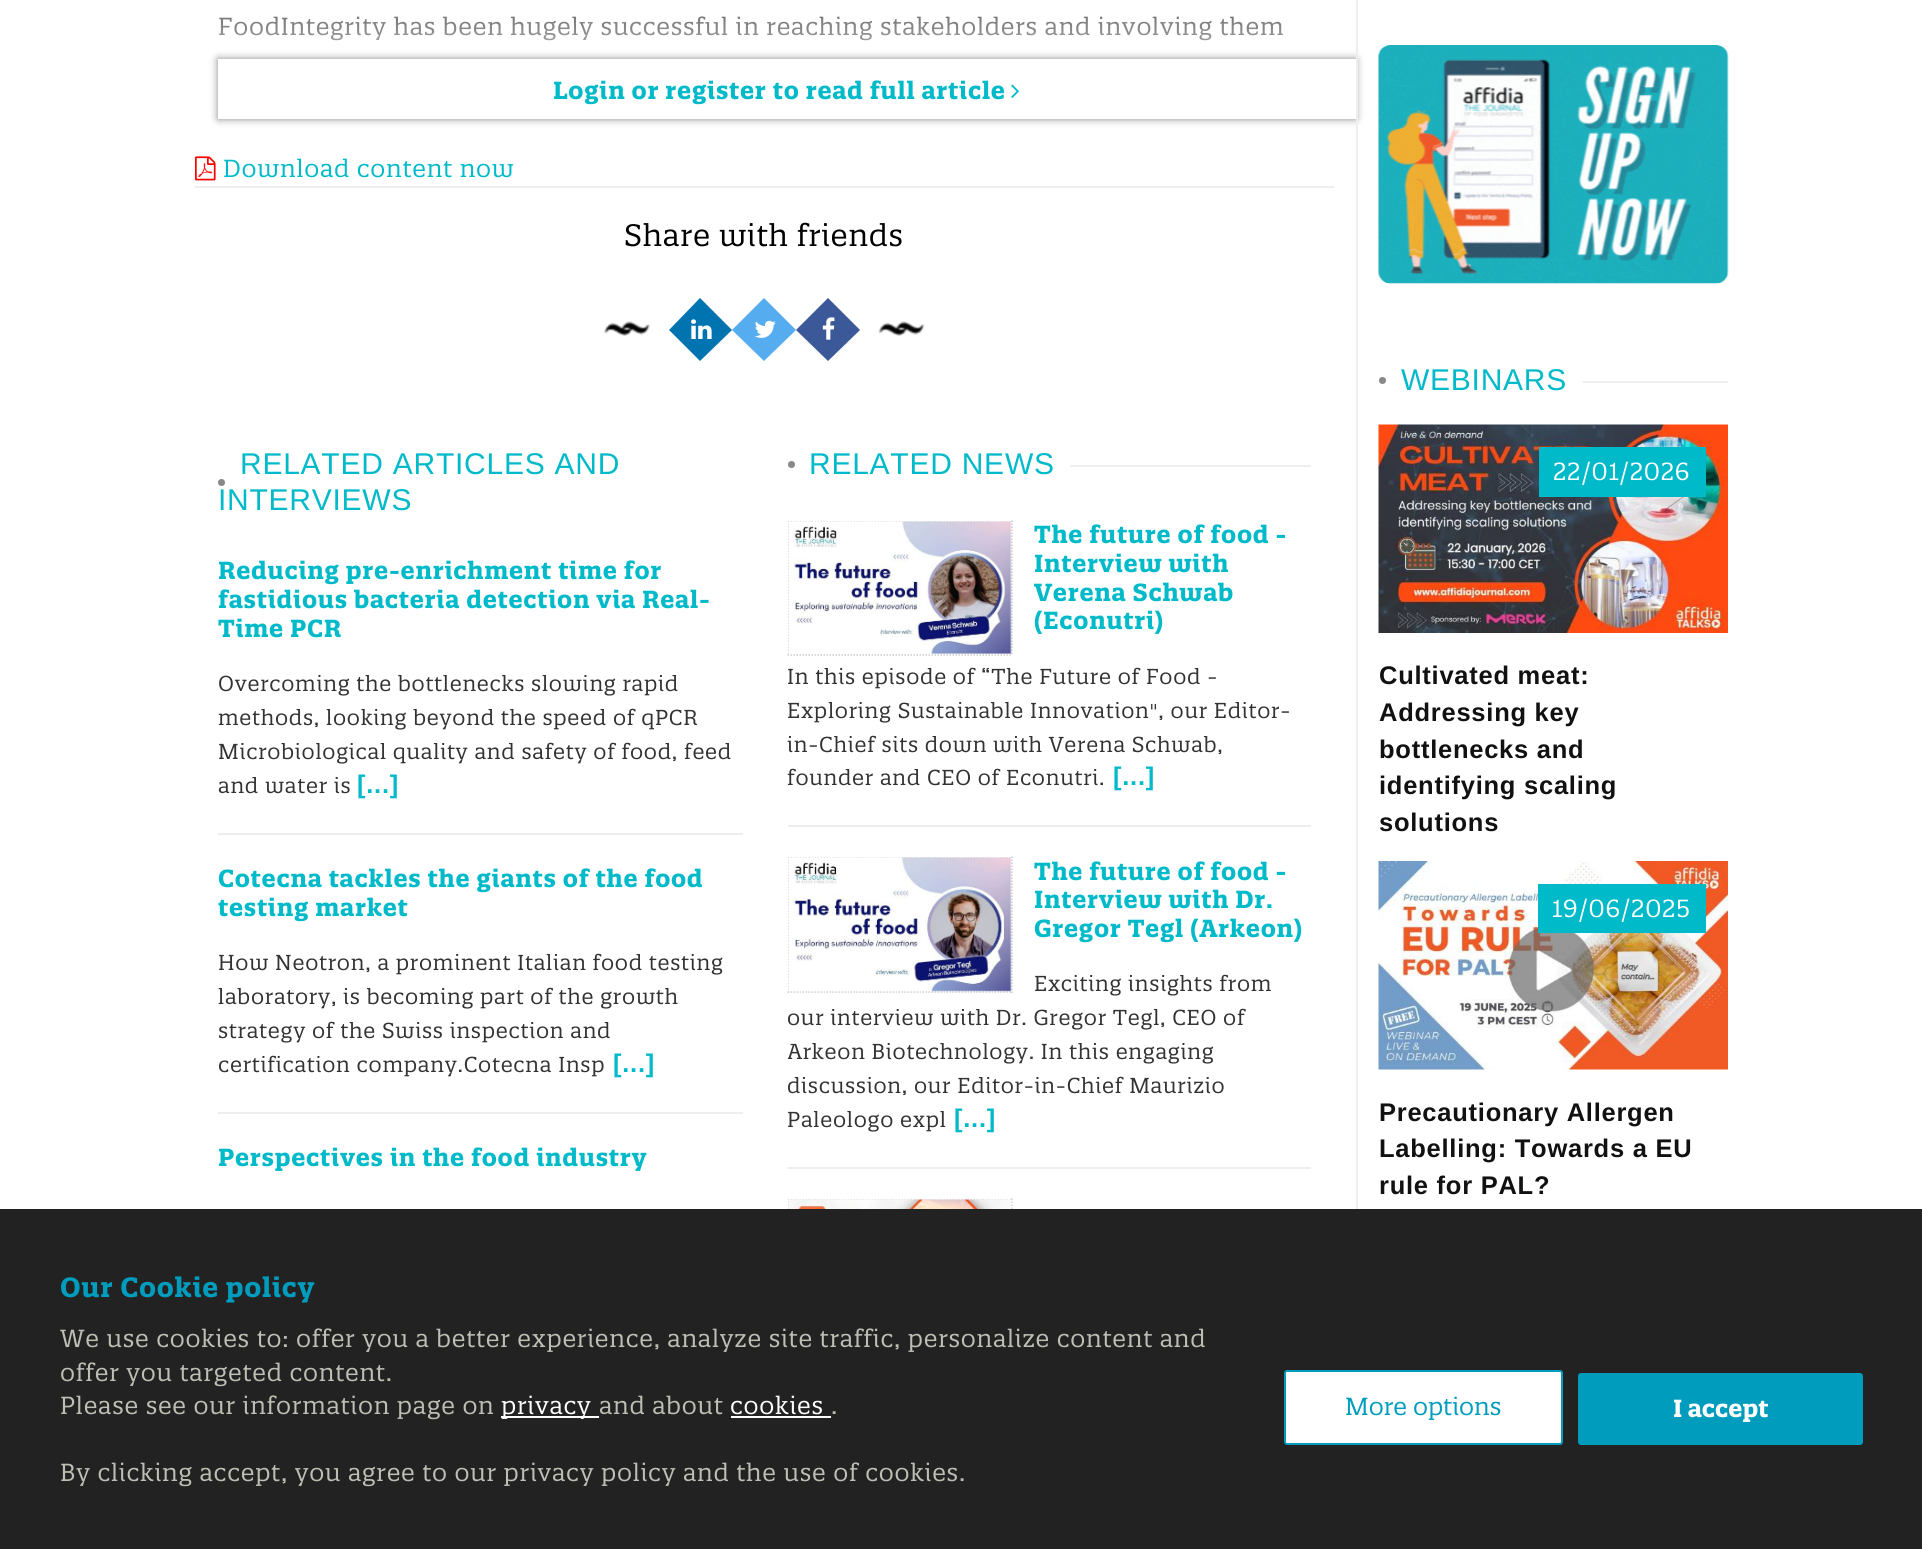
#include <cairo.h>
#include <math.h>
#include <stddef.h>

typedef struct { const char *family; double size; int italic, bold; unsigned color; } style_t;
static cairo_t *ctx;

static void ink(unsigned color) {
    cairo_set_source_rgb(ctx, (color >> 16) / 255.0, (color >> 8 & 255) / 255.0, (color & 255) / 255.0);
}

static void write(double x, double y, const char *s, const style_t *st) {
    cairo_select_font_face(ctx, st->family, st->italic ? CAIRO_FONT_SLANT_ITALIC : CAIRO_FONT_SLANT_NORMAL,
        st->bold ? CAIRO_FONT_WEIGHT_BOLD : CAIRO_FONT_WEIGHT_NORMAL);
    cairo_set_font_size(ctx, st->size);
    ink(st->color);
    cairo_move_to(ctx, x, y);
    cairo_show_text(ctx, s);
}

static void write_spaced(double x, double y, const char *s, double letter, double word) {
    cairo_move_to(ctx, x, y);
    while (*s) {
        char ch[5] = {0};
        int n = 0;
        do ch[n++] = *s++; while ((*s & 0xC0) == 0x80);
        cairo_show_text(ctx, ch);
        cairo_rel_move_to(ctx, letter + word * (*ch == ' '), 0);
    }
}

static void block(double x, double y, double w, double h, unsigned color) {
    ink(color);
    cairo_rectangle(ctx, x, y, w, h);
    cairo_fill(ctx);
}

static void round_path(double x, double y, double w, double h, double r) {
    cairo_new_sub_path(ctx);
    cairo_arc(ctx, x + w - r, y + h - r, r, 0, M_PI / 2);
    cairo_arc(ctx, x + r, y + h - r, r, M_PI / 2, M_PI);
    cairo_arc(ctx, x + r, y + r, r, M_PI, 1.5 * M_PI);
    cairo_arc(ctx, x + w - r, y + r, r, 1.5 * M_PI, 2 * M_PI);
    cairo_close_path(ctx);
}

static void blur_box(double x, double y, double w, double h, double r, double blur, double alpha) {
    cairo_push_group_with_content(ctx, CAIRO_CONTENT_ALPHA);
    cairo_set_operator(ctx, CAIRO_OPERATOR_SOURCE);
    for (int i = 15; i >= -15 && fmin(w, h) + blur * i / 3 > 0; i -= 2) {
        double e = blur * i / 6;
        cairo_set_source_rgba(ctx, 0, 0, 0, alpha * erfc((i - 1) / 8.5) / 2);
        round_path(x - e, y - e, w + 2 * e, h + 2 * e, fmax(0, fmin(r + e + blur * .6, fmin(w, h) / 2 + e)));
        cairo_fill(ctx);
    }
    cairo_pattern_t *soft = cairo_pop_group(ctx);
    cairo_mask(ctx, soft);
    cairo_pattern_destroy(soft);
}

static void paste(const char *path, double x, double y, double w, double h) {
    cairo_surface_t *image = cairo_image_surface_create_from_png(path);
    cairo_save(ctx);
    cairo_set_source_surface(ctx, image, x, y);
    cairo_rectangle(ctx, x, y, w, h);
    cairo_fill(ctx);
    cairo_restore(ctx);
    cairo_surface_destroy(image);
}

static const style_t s1 = {"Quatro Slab", 24, 0, 0, 0x009cbd};
static const style_t s2 = {"Quatro Slab", 24, 0, 1, 0xffffff};

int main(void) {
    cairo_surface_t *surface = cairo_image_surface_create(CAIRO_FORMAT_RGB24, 1922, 1549);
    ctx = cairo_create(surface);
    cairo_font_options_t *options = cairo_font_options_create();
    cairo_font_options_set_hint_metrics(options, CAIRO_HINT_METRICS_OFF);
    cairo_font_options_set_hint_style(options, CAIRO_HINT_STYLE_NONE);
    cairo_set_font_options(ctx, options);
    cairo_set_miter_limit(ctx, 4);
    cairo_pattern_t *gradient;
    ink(0xffffff);
    cairo_paint(ctx);
    cairo_select_font_face(ctx, "Quatro Slab", CAIRO_FONT_SLANT_NORMAL, CAIRO_FONT_WEIGHT_NORMAL);
    cairo_set_font_size(ctx, 24);
    ink(0x000000);
    write_spaced(218, 35, "FoodIntegrity has been hugely successful in reaching stakeholders and involving them", 0.75, 0);
    gradient = cairo_pattern_create_linear(764, -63, 764, 117);
    cairo_pattern_add_color_stop_rgba(gradient, 0, 1, 1, 1, 0);
    cairo_pattern_add_color_stop_rgba(gradient, 0.95, 1, 1, 1, 1);
    cairo_set_source(ctx, gradient);
    cairo_pattern_destroy(gradient);
    cairo_rectangle(ctx, 218, 16, 1065, 25);
    cairo_fill(ctx);
    ink(0x888887);
    blur_box(218, 59, 1138, 60, 0, 4, 1);
    block(218, 59, 1138, 60, 0xffffff);
    cairo_select_font_face(ctx, "Quatro Slab", CAIRO_FONT_SLANT_NORMAL, CAIRO_FONT_WEIGHT_BOLD);
    ink(0x01bac9);
    write_spaced(553, 99, "Login or register to read full article", 0.75, 0);
    paste("pic1.png", 1011, 84, 8, 14);
    paste("pic2.png", 195, 156, 21, 25);
    cairo_select_font_face(ctx, "Quatro Slab", CAIRO_FONT_SLANT_NORMAL, CAIRO_FONT_WEIGHT_NORMAL);
    write_spaced(223, 177, "Download content now", 0.75, 0);
    block(195, 186, 1139, 2, 0xeeeeee);
    cairo_set_font_size(ctx, 30);
    ink(0x000000);
    write_spaced(624, 246, "Share with friends", 0.75, 0);
    paste("pic3.png", 604, 321, 46, 15);
    ink(0x0073b1);
    cairo_new_path(ctx);
    cairo_move_to(ctx, 700, 298);
    cairo_line_to(ctx, 732, 330);
    cairo_line_to(ctx, 700, 361);
    cairo_line_to(ctx, 669, 330);
    cairo_close_path(ctx);
    cairo_fill(ctx);
    paste("pic4.png", 691, 319, 21, 20);
    ink(0x55acee);
    cairo_new_path(ctx);
    cairo_move_to(ctx, 764, 298);
    cairo_line_to(ctx, 796, 330);
    cairo_line_to(ctx, 764, 361);
    cairo_line_to(ctx, 732, 330);
    cairo_close_path(ctx);
    cairo_fill(ctx);
    paste("pic5.png", 754, 320, 22, 18);
    ink(0x3b5998);
    cairo_new_path(ctx);
    cairo_move_to(ctx, 828, 298);
    cairo_line_to(ctx, 860, 330);
    cairo_line_to(ctx, 828, 361);
    cairo_line_to(ctx, 796, 330);
    cairo_close_path(ctx);
    cairo_fill(ctx);
    paste("pic6.png", 822, 317, 13, 23);
    paste("pic7.png", 878, 321, 47, 15);
    cairo_select_font_face(ctx, "Liberation Sans", CAIRO_FONT_SLANT_NORMAL, CAIRO_FONT_WEIGHT_NORMAL);
    ink(0x01bac9);
    write_spaced(240, 474, "RELATED ARTICLES AND", 0.75, 0);
    ink(0x888888);
    cairo_new_path(ctx);
    cairo_arc(ctx, 221.5, 482.5, 3.5, 0, 2 * M_PI);
    cairo_fill(ctx);
    ink(0x01bac9);
    write_spaced(218, 510, "INTERVIEWS", 0.75, 0);
    block(218, 833, 525, 2, 0xeeeeee);
    cairo_select_font_face(ctx, "Quatro Slab", CAIRO_FONT_SLANT_NORMAL, CAIRO_FONT_WEIGHT_BOLD);
    cairo_set_font_size(ctx, 24);
    ink(0x01bac9);
    write_spaced(218, 579, "Reducing pre-enrichment time for", 0.75, 0);
    write_spaced(218, 608, "fastidious bacteria detection via Real-", 0.75, 0);
    cairo_save(ctx);
    cairo_rectangle(ctx, 218, 557, 525, 276);
    cairo_clip(ctx);
    write_spaced(218, 637, "Time PCR", 0.75, 0);
    cairo_restore(ctx);
    cairo_select_font_face(ctx, "Quatro Slab", CAIRO_FONT_SLANT_NORMAL, CAIRO_FONT_WEIGHT_NORMAL);
    cairo_set_font_size(ctx, 21);
    ink(0x333333);
    write_spaced(218, 691, "Overcoming the bottlenecks slowing rapid", 0.75, 0);
    write_spaced(218, 725, "methods, looking beyond the speed of qPCR", 0.75, 0);
    write_spaced(218, 759, "Microbiological quality and safety of food, feed", 0.75, 0);
    write_spaced(218, 793, "and water is", 0.75, 0);
    cairo_select_font_face(ctx, "Liberation Sans", CAIRO_FONT_SLANT_NORMAL, CAIRO_FONT_WEIGHT_BOLD);
    cairo_set_font_size(ctx, 25.5);
    ink(0x01bac9);
    write_spaced(357, 793, "[...]", 0.75, 0);
    block(218, 1112, 525, 2, 0xeeeeee);
    cairo_select_font_face(ctx, "Quatro Slab", CAIRO_FONT_SLANT_NORMAL, CAIRO_FONT_WEIGHT_BOLD);
    cairo_set_font_size(ctx, 24);
    ink(0x01bac9);
    write_spaced(218, 887, "Cotecna tackles the giants of the food", 0.75, 0);
    write_spaced(218, 916, "testing market", 0.75, 0);
    cairo_select_font_face(ctx, "Quatro Slab", CAIRO_FONT_SLANT_NORMAL, CAIRO_FONT_WEIGHT_NORMAL);
    cairo_set_font_size(ctx, 21);
    ink(0x333333);
    write_spaced(218, 970, "How Neotron, a prominent Italian food testing", 0.75, 0);
    write_spaced(218, 1004, "laboratory, is becoming part of the growth", 0.75, 0);
    write_spaced(218, 1038, "strategy of the Swiss inspection and", 0.75, 0);
    write_spaced(218, 1072, "certification company.Cotecna Insp", 0.75, 0);
    cairo_select_font_face(ctx, "Liberation Sans", CAIRO_FONT_SLANT_NORMAL, CAIRO_FONT_WEIGHT_BOLD);
    cairo_set_font_size(ctx, 25.5);
    ink(0x01bac9);
    write_spaced(613, 1072, "[...]", 0.75, 0);
    cairo_select_font_face(ctx, "Quatro Slab", CAIRO_FONT_SLANT_NORMAL, CAIRO_FONT_WEIGHT_BOLD);
    cairo_set_font_size(ctx, 24);
    write_spaced(218, 1166, "Perspectives in the food industry", 0.75, 0);
    ink(0x888888);
    cairo_new_path(ctx);
    cairo_arc(ctx, 791.5, 464.5, 3.5, 0, 2 * M_PI);
    cairo_fill(ctx);
    cairo_select_font_face(ctx, "Liberation Sans", CAIRO_FONT_SLANT_NORMAL, CAIRO_FONT_WEIGHT_NORMAL);
    cairo_set_font_size(ctx, 30);
    ink(0x01bac9);
    write_spaced(809, 474, "RELATED NEWS", 0.75, 0);
    block(1070, 465, 241, 2, 0xefefef);
    block(788, 825, 523, 2, 0xeeeeee);
    cairo_save(ctx);
    cairo_rectangle(ctx, 788, 521, 225, 135);
    cairo_clip(ctx);
    cairo_new_path(ctx);
    cairo_move_to(ctx, 787.5, 521);
    cairo_line_to(ctx, 1012.5, 521);
    ink(0xcccccc);
    cairo_set_line_width(ctx, 1.5);
    cairo_set_dash(ctx, (double[]){1.5, 1.5}, 2, 0);
    cairo_stroke(ctx);
    cairo_new_path(ctx);
    cairo_move_to(ctx, 788, 520.5);
    cairo_line_to(ctx, 788, 655.5);
    cairo_stroke(ctx);
    cairo_restore(ctx);
    cairo_new_path(ctx);
    cairo_move_to(ctx, 1012, 520.5);
    cairo_line_to(ctx, 1012, 655.5);
    ink(0xcccccc);
    cairo_set_line_width(ctx, 1.5);
    cairo_set_dash(ctx, (double[]){1.5, 1.5}, 2, 0);
    cairo_stroke(ctx);
    paste("pic8.png", 788, 521, 224, 133);
    cairo_new_path(ctx);
    cairo_move_to(ctx, 787.5, 655);
    cairo_line_to(ctx, 1012.5, 655);
    cairo_stroke(ctx);
    cairo_select_font_face(ctx, "Quatro Slab", CAIRO_FONT_SLANT_NORMAL, CAIRO_FONT_WEIGHT_BOLD);
    cairo_set_font_size(ctx, 24);
    ink(0x01bac9);
    write_spaced(1034, 543, "The future of food -", 0.75, 0);
    write_spaced(1034, 572, "Interview with", 0.75, 0);
    write_spaced(1034, 601, "Verena Schwab", 0.75, 0);
    write_spaced(1034, 629, "(Econutri)", 0.75, 0);
    cairo_select_font_face(ctx, "Quatro Slab", CAIRO_FONT_SLANT_NORMAL, CAIRO_FONT_WEIGHT_NORMAL);
    cairo_set_font_size(ctx, 21);
    ink(0x333333);
    write_spaced(787, 684, "In this episode of “The Future of Food -", 0.75, 0);
    write_spaced(787, 718, "Exploring Sustainable Innovation\", our Editor-", 0.75, 0);
    write_spaced(787, 752, "in-Chief sits down with Verena Schwab,", 0.75, 0);
    write_spaced(787, 785, "founder and CEO of Econutri.", 0.75, 0);
    cairo_select_font_face(ctx, "Liberation Sans", CAIRO_FONT_SLANT_NORMAL, CAIRO_FONT_WEIGHT_BOLD);
    cairo_set_font_size(ctx, 25.5);
    ink(0x01bac9);
    write_spaced(1113, 785, "[...]", 0.75, 0);
    block(788, 1167, 523, 2, 0xeeeeee);
    cairo_save(ctx);
    cairo_rectangle(ctx, 788, 857, 225, 136);
    cairo_clip(ctx);
    cairo_new_path(ctx);
    cairo_move_to(ctx, 787.5, 857);
    cairo_line_to(ctx, 1012.5, 857);
    ink(0xcccccc);
    cairo_stroke(ctx);
    cairo_restore(ctx);
    cairo_new_path(ctx);
    cairo_move_to(ctx, 787.5, 992);
    cairo_line_to(ctx, 1012.5, 992);
    ink(0xcccccc);
    cairo_stroke(ctx);
    cairo_save(ctx);
    cairo_rectangle(ctx, 788, 857, 225, 136);
    cairo_clip(ctx);
    cairo_new_path(ctx);
    cairo_move_to(ctx, 788, 856.5);
    cairo_line_to(ctx, 788, 993);
    cairo_stroke(ctx);
    cairo_restore(ctx);
    cairo_new_path(ctx);
    cairo_move_to(ctx, 1012, 856.5);
    cairo_line_to(ctx, 1012, 993);
    cairo_stroke(ctx);
    paste("pic9.png", 788, 857, 224, 135);
    cairo_select_font_face(ctx, "Quatro Slab", CAIRO_FONT_SLANT_NORMAL, CAIRO_FONT_WEIGHT_BOLD);
    cairo_set_font_size(ctx, 24);
    ink(0x01bac9);
    write_spaced(1034, 880, "The future of food -", 0.75, 0);
    write_spaced(1034, 908, "Interview with Dr.", 0.75, 0);
    write_spaced(1034, 937, "Gregor Tegl (Arkeon)", 0.75, 0);
    cairo_select_font_face(ctx, "Quatro Slab", CAIRO_FONT_SLANT_NORMAL, CAIRO_FONT_WEIGHT_NORMAL);
    cairo_set_font_size(ctx, 21);
    ink(0x333333);
    write_spaced(1034, 991, "Exciting insights from", 0.75, 0);
    cairo_save(ctx);
    cairo_rectangle(ctx, 788, 857, 523, 310);
    cairo_clip(ctx);
    write_spaced(787, 1025, "our interview with Dr. Gregor Tegl, CEO of", 0.75, 0);
    write_spaced(787, 1059, "Arkeon Biotechnology. In this engaging", 0.75, 0);
    write_spaced(787, 1093, "discussion, our Editor-in-Chief Maurizio", 0.75, 0);
    cairo_restore(ctx);
    write_spaced(787, 1127, "Paleologo expl", 0.75, 0);
    cairo_select_font_face(ctx, "Liberation Sans", CAIRO_FONT_SLANT_NORMAL, CAIRO_FONT_WEIGHT_BOLD);
    cairo_set_font_size(ctx, 25.5);
    ink(0x01bac9);
    write_spaced(954, 1127, "[...]", 0.75, 0);
    cairo_save(ctx);
    cairo_rectangle(ctx, 788, 1199, 225, 135);
    cairo_clip(ctx);
    cairo_new_path(ctx);
    cairo_move_to(ctx, 787.5, 1199);
    cairo_line_to(ctx, 1012.5, 1199);
    ink(0xcccccc);
    cairo_stroke(ctx);
    cairo_new_path(ctx);
    cairo_move_to(ctx, 788, 1198.5);
    cairo_line_to(ctx, 788, 1333.5);
    cairo_stroke(ctx);
    cairo_restore(ctx);
    cairo_new_path(ctx);
    cairo_move_to(ctx, 1012, 1198.5);
    cairo_line_to(ctx, 1012, 1333.5);
    ink(0xcccccc);
    cairo_stroke(ctx);
    paste("pic10.png", 788, 1199, 224, 10);
    block(1356, 0, 2, 1209, 0xeeeeee);
    paste("pic11.png", 1378, 45, 351, 239);
    ink(0x888888);
    cairo_arc(ctx, 1382.5, 380.5, 3.5, 0, 2 * M_PI);
    cairo_fill(ctx);
    cairo_select_font_face(ctx, "Liberation Sans", CAIRO_FONT_SLANT_NORMAL, CAIRO_FONT_WEIGHT_NORMAL);
    cairo_set_font_size(ctx, 30);
    ink(0x01bac9);
    write_spaced(1401, 390, "WEBINARS", 0.75, 0);
    block(1583, 381, 145, 2, 0xefefef);
    paste("pic12.png", 1378, 424, 350, 209);
    block(1539, 447, 167, 50, 0x01bac9);
    cairo_select_font_face(ctx, "Quatro Slab", CAIRO_FONT_SLANT_NORMAL, CAIRO_FONT_WEIGHT_NORMAL);
    cairo_set_font_size(ctx, 24);
    ink(0xffffff);
    write_spaced(1553, 480, "22/01/2026", 0.75, 0);
    cairo_select_font_face(ctx, "Liberation Sans", CAIRO_FONT_SLANT_NORMAL, CAIRO_FONT_WEIGHT_BOLD);
    cairo_set_font_size(ctx, 25.5);
    ink(0x111111);
    write_spaced(1379, 684, "Cultivated meat:", 0.75, 0);
    write_spaced(1379, 721, "Addressing key", 0.75, 0);
    write_spaced(1379, 758, "bottlenecks and", 0.75, 0);
    write_spaced(1379, 794, "identifying scaling", 0.75, 0);
    write_spaced(1379, 831, "solutions", 0.75, 0);
    paste("pic13.png", 1378, 861, 350, 209);
    block(1538, 884, 168, 49, 0x01bac9);
    cairo_select_font_face(ctx, "Quatro Slab", CAIRO_FONT_SLANT_NORMAL, CAIRO_FONT_WEIGHT_NORMAL);
    cairo_set_font_size(ctx, 24);
    ink(0xffffff);
    write_spaced(1552, 917, "19/06/2025", 0.75, 0);
    cairo_select_font_face(ctx, "Liberation Sans", CAIRO_FONT_SLANT_NORMAL, CAIRO_FONT_WEIGHT_BOLD);
    cairo_set_font_size(ctx, 25.5);
    ink(0x111111);
    write_spaced(1379, 1121, "Precautionary Allergen", 0.75, 0);
    write_spaced(1379, 1157, "Labelling: Towards a EU", 0.75, 0);
    write_spaced(1379, 1194, "rule for PAL?", 0.75, 0);
    block(0, 1209, 1922, 340, 0x222222);
    cairo_select_font_face(ctx, "Quatro Slab", CAIRO_FONT_SLANT_NORMAL, CAIRO_FONT_WEIGHT_BOLD);
    cairo_set_font_size(ctx, 27);
    ink(0x009cbd);
    write_spaced(60, 1297, "Our Cookie policy", 0.75, 0);
    cairo_select_font_face(ctx, "Quatro Slab", CAIRO_FONT_SLANT_NORMAL, CAIRO_FONT_WEIGHT_NORMAL);
    cairo_set_font_size(ctx, 24);
    ink(0xbebeb5);
    write_spaced(60, 1347, "We use cookies to: offer you a better experience, analyze site traffic, personalize content and", 0.75, 0);
    write_spaced(60, 1381, "offer you targeted content.", 0.75, 0);
    write_spaced(60, 1414, "Please see our information page on", 0.75, 0);
    block(501, 1416, 98, 2, 0xffffff);
    write_spaced(501, 1414, "privacy", 0.75, 0);
    ink(0xbebeb5);
    write_spaced(599, 1414, "and about", 0.75, 0);
    ink(0xffffff);
    write_spaced(730, 1414, "cookies", 0.75, 0);
    block(731, 1416, 100, 2, 0xffffff);
    ink(0xbebeb5);
    write_spaced(831, 1414, ".", 0.75, 0);
    write_spaced(60, 1481, "By clicking accept, you agree to our privacy policy and the use of cookies.", 0.75, 0);
    ink(0xffffff);
    round_path(1285, 1371, 277, 73, 2);
    cairo_fill_preserve(ctx);
    ink(0x009cbd);
    cairo_set_line_width(ctx, 2);
    cairo_set_dash(ctx, NULL, 0, 0);
    cairo_stroke(ctx);
    write(1345, 1415, "More options", &s1);
    round_path(1578, 1373, 285, 72, 3);
    cairo_fill(ctx);
    write(1673, 1417, "I accept", &s2);
    cairo_surface_write_to_png(surface, "screenshot.png");
    cairo_font_options_destroy(options);
    cairo_destroy(ctx);
    cairo_surface_destroy(surface);
    return 0;
}
